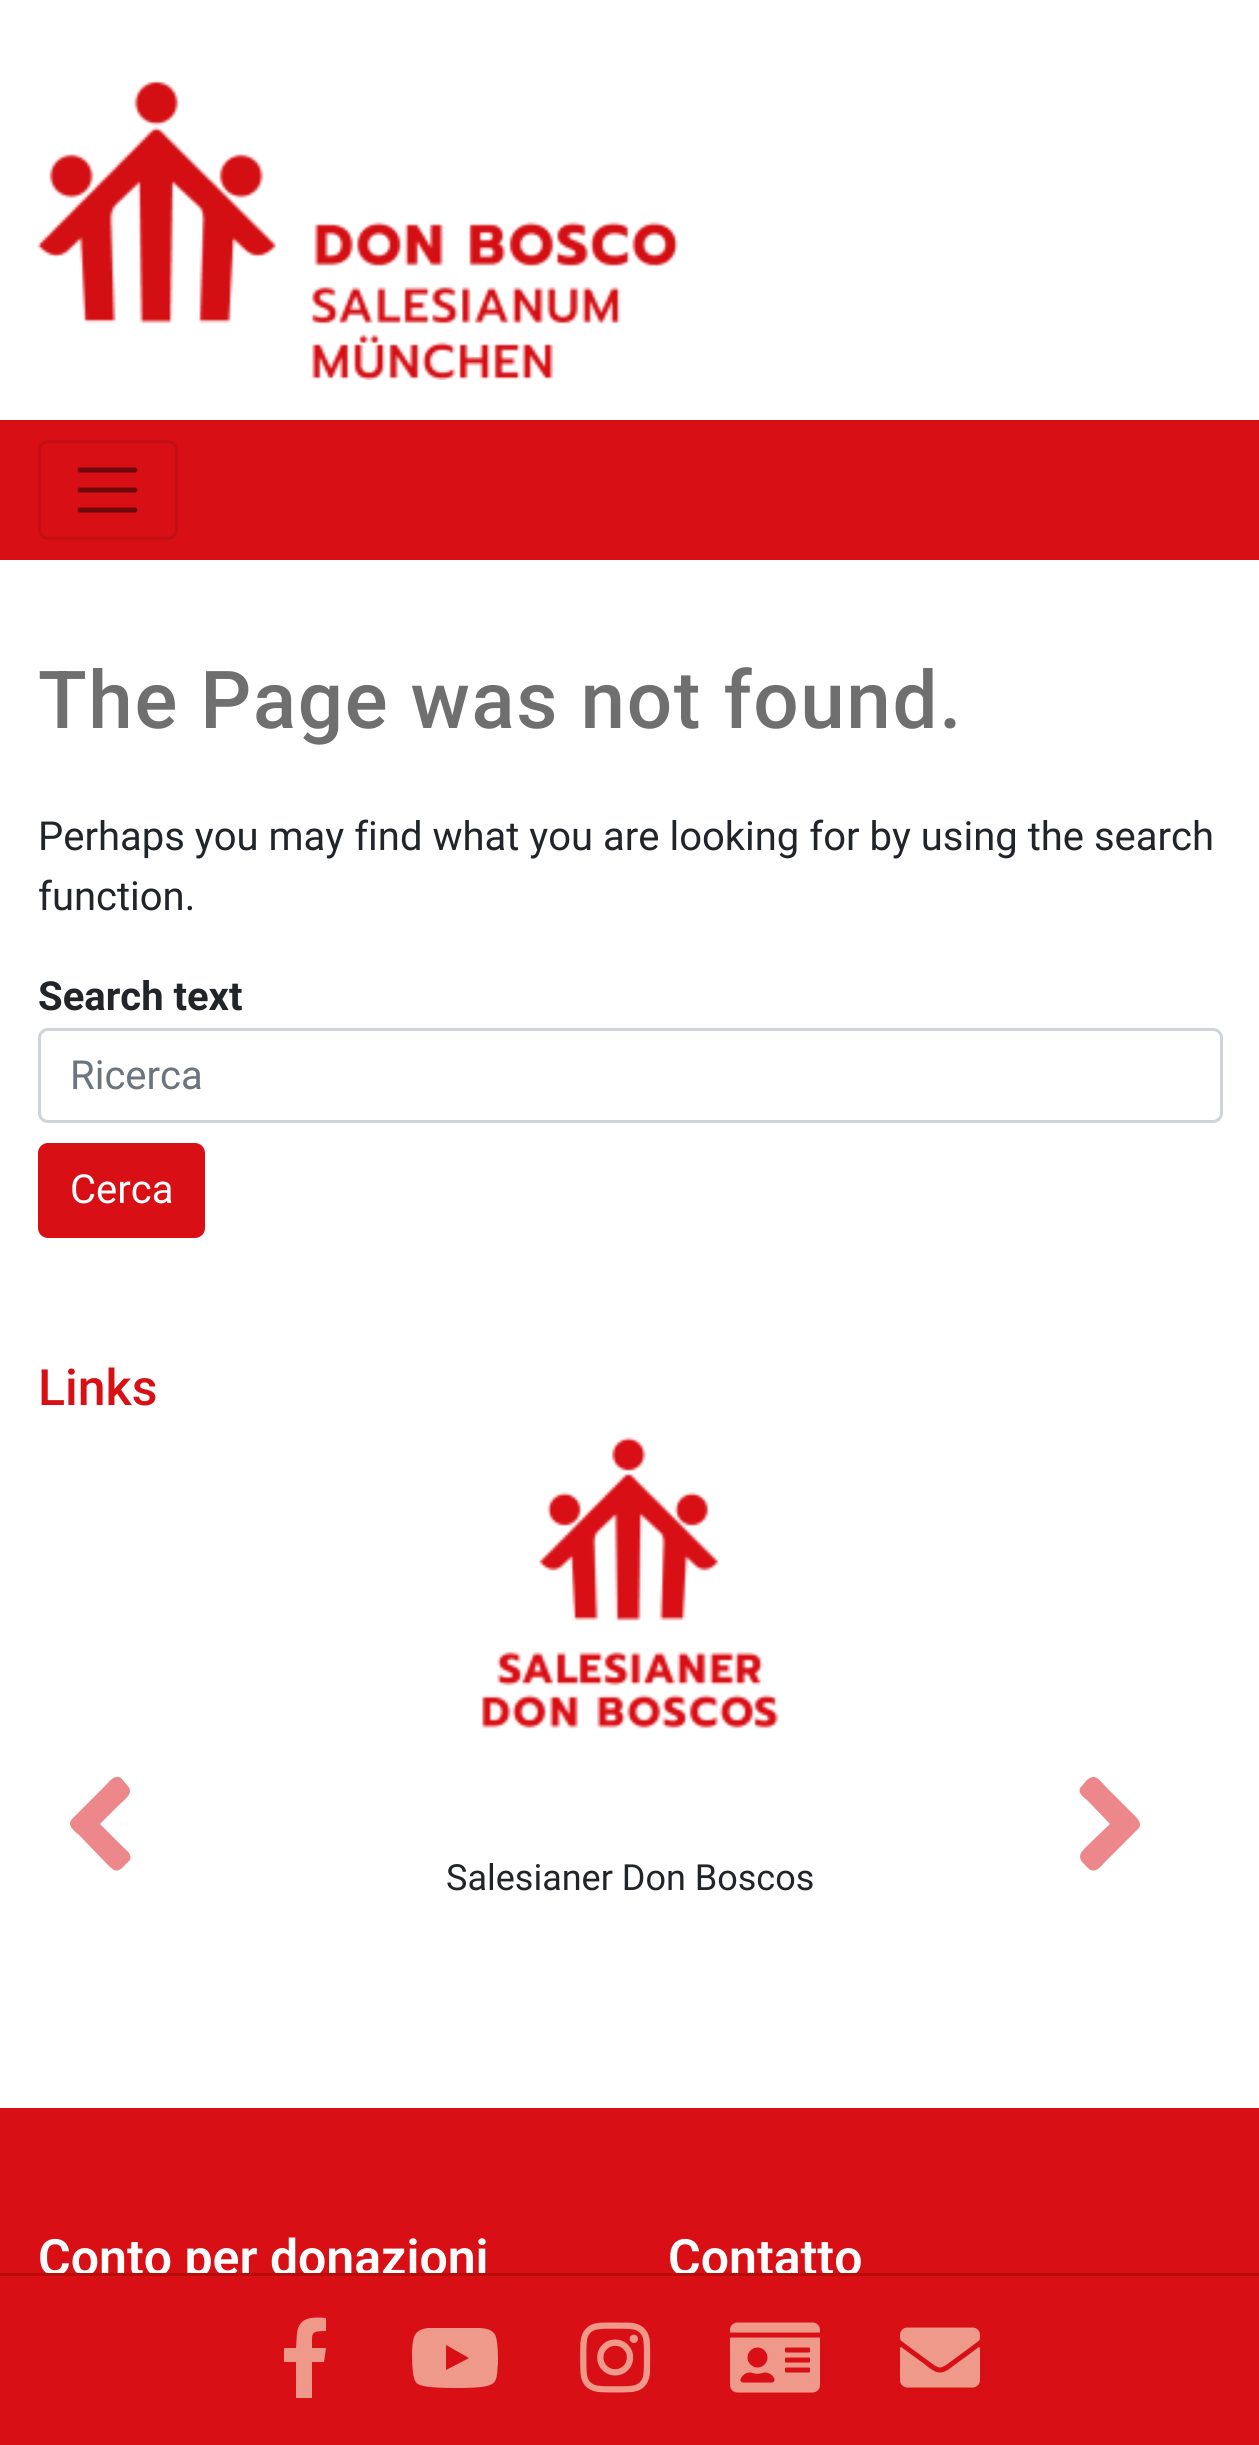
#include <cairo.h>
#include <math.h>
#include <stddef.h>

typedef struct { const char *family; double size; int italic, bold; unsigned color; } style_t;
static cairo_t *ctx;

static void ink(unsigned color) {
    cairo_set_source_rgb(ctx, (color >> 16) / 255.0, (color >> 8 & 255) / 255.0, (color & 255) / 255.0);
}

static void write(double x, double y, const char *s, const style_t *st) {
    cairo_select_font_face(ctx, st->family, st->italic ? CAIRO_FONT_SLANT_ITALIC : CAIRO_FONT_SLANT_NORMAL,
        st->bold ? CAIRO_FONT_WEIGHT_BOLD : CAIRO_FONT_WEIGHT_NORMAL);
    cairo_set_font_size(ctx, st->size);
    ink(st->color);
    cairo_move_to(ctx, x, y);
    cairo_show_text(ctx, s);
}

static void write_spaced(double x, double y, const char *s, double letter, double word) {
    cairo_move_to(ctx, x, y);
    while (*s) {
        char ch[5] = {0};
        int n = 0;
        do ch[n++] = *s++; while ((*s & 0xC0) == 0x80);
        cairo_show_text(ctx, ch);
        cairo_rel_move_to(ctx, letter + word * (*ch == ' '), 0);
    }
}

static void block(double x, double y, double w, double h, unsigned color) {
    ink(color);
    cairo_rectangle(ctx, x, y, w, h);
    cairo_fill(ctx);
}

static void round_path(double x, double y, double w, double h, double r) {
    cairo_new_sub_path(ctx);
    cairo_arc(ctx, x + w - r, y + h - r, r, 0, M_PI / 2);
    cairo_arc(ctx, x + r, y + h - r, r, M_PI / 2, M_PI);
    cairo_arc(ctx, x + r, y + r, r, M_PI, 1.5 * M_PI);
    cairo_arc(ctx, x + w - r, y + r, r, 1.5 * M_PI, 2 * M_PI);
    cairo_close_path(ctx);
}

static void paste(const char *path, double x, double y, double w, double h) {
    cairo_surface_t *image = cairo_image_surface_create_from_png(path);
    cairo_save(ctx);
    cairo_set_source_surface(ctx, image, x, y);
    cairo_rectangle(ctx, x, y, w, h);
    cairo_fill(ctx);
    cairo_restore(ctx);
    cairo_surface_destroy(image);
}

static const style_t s1 = {"Roboto", 40, 0, 0, 0x212529};
static const style_t s2 = {"Roboto", 40, 0, 1, 0x212529};
static const style_t s3 = {"Roboto", 40, 0, 0, 0x6c757d};
static const style_t s4 = {"Roboto", 40, 0, 0, 0xffffff};
static const style_t s5 = {"Roboto Medium", 50, 0, 0, 0xd90f16};
static const style_t s6 = {"Roboto", 36, 0, 0, 0x212529};
static const style_t s7 = {"Roboto SemiBold", 50, 0, 0, 0xffffff};

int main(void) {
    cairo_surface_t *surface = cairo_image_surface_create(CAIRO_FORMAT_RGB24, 1259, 2445);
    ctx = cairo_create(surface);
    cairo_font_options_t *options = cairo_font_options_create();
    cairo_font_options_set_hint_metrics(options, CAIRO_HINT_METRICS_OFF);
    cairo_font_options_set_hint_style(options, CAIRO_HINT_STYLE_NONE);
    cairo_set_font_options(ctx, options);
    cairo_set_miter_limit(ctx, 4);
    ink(0xffffff);
    cairo_paint(ctx);
    paste("pic1.png", 37, 80, 641, 300);
    block(0, 420, 1259, 140, 0xd90f16);
    round_path(39.5, 441.5, 137, 97, 8.5);
    ink(0xc30e14);
    cairo_set_line_width(ctx, 3);
    cairo_stroke(ctx);
    cairo_new_path(ctx);
    cairo_move_to(ctx, 80, 470);
    cairo_line_to(ctx, 135, 470);
    cairo_move_to(ctx, 80, 490);
    cairo_line_to(ctx, 135, 490);
    cairo_move_to(ctx, 80, 510);
    cairo_line_to(ctx, 135, 510);
    ink(0x6d080b);
    cairo_set_line_width(ctx, 5);
    cairo_set_line_cap(ctx, CAIRO_LINE_CAP_ROUND);
    cairo_stroke(ctx);
    cairo_select_font_face(ctx, "Roboto Medium", CAIRO_FONT_SLANT_NORMAL, CAIRO_FONT_WEIGHT_NORMAL);
    cairo_set_font_size(ctx, 80);
    ink(0x706f6f);
    write_spaced(38, 728, "The Page was not found.", 1.6, 0);
    write(38, 850, "Perhaps you may find what you are looking for by using the search", &s1);
    write(38, 910, "function.", &s1);
    write(38, 1010, "Search text", &s2);
    round_path(39.5, 1029.5, 1182, 92, 8.5);
    ink(0xced4da);
    cairo_set_line_width(ctx, 3);
    cairo_set_line_cap(ctx, CAIRO_LINE_CAP_BUTT);
    cairo_stroke(ctx);
    write(70, 1089, "Ricerca", &s3);
    ink(0xd90f16);
    round_path(39.5, 1144.5, 164, 92, 8.5);
    cairo_fill_preserve(ctx);
    cairo_stroke(ctx);
    write(70, 1203, "Cerca", &s4);
    write(38, 1405, "Links", &s5);
    ink(0xec878b);
    cairo_new_path(ctx);
    cairo_move_to(ctx, 72, 1819);
    cairo_line_to(ctx, 105, 1786);
    cairo_curve_to(ctx, 109, 1782, 114, 1774, 121, 1778);
    cairo_line_to(ctx, 127, 1785);
    cairo_curve_to(ctx, 135, 1793, 125, 1799, 119, 1805);
    cairo_line_to(ctx, 100, 1824);
    cairo_line_to(ctx, 123, 1847);
    cairo_curve_to(ctx, 127, 1851, 132, 1854, 130, 1860);
    cairo_line_to(ctx, 124, 1866);
    cairo_curve_to(ctx, 116, 1875, 112, 1869, 105, 1862);
    cairo_line_to(ctx, 79, 1835);
    cairo_curve_to(ctx, 75, 1832, 66, 1825, 72, 1819);
    cairo_close_path(ctx);
    cairo_fill(ctx);
    cairo_new_path(ctx);
    cairo_move_to(ctx, 1138, 1829);
    cairo_line_to(ctx, 1105, 1862);
    cairo_curve_to(ctx, 1101, 1866, 1096, 1874, 1089, 1869);
    cairo_line_to(ctx, 1083, 1863);
    cairo_curve_to(ctx, 1075, 1854, 1085, 1849, 1091, 1842);
    cairo_line_to(ctx, 1110, 1824);
    cairo_line_to(ctx, 1087, 1800);
    cairo_curve_to(ctx, 1083, 1797, 1078, 1793, 1080, 1788);
    cairo_line_to(ctx, 1086, 1781);
    cairo_curve_to(ctx, 1094, 1773, 1098, 1778, 1105, 1786);
    cairo_line_to(ctx, 1131, 1812);
    cairo_curve_to(ctx, 1135, 1816, 1144, 1823, 1138, 1829);
    cairo_close_path(ctx);
    cairo_fill(ctx);
    paste("pic2.png", 481, 1437, 298, 292);
    write(446, 1890, "Salesianer Don Boscos", &s6);
    block(0, 2108, 1259, 165, 0xd90f16);
    write(38, 2275, "Conto per donazioni", &s7);
    write(668, 2275, "Contatto", &s7);
    block(0, 2276, 1259, 169, 0xd90f16);
    block(0, 2273, 1259, 3, 0xb60d08);
    ink(0xef998b);
    cairo_new_path(ctx);
    cairo_move_to(ctx, 324, 2362);
    cairo_line_to(ctx, 312, 2362);
    cairo_line_to(ctx, 312, 2398);
    cairo_line_to(ctx, 296, 2398);
    cairo_line_to(ctx, 296, 2362);
    cairo_line_to(ctx, 284, 2362);
    cairo_line_to(ctx, 284, 2348);
    cairo_line_to(ctx, 296, 2348);
    cairo_line_to(ctx, 297, 2333);
    cairo_curve_to(ctx, 299, 2316, 314, 2317, 326, 2318);
    cairo_line_to(ctx, 326, 2331);
    cairo_curve_to(ctx, 310, 2331, 312, 2333, 312, 2348);
    cairo_line_to(ctx, 326, 2348);
    cairo_close_path(ctx);
    cairo_fill(ctx);
    cairo_new_path(ctx);
    cairo_move_to(ctx, 496, 2337);
    cairo_curve_to(ctx, 498, 2345, 498, 2355, 498, 2364);
    cairo_curve_to(ctx, 497, 2369, 498, 2376, 495, 2381);
    cairo_curve_to(ctx, 494, 2383, 492, 2384, 490, 2385);
    cairo_curve_to(ctx, 483, 2388, 465, 2388, 457, 2388);
    cairo_curve_to(ctx, 448, 2388, 428, 2388, 420, 2385);
    cairo_curve_to(ctx, 417, 2384, 415, 2382, 414, 2378);
    cairo_curve_to(ctx, 412, 2370, 412, 2359, 412, 2351);
    cairo_curve_to(ctx, 413, 2338, 413, 2330, 428, 2328);
    cairo_line_to(ctx, 446, 2328);
    cairo_line_to(ctx, 472, 2328);
    cairo_curve_to(ctx, 480, 2328, 493, 2327, 496, 2337);
    cairo_close_path(ctx);
    cairo_move_to(ctx, 446, 2370);
    cairo_line_to(ctx, 469, 2358);
    cairo_line_to(ctx, 446, 2345);
    cairo_close_path(ctx);
    cairo_fill(ctx);
    paste("pic3.png", 580, 2322, 71, 71);
    paste("pic4.png", 730, 2322, 90, 71);
    paste("pic5.png", 900, 2327, 80, 61);
    cairo_surface_write_to_png(surface, "screenshot.png");
    cairo_font_options_destroy(options);
    cairo_destroy(ctx);
    cairo_surface_destroy(surface);
    return 0;
}
